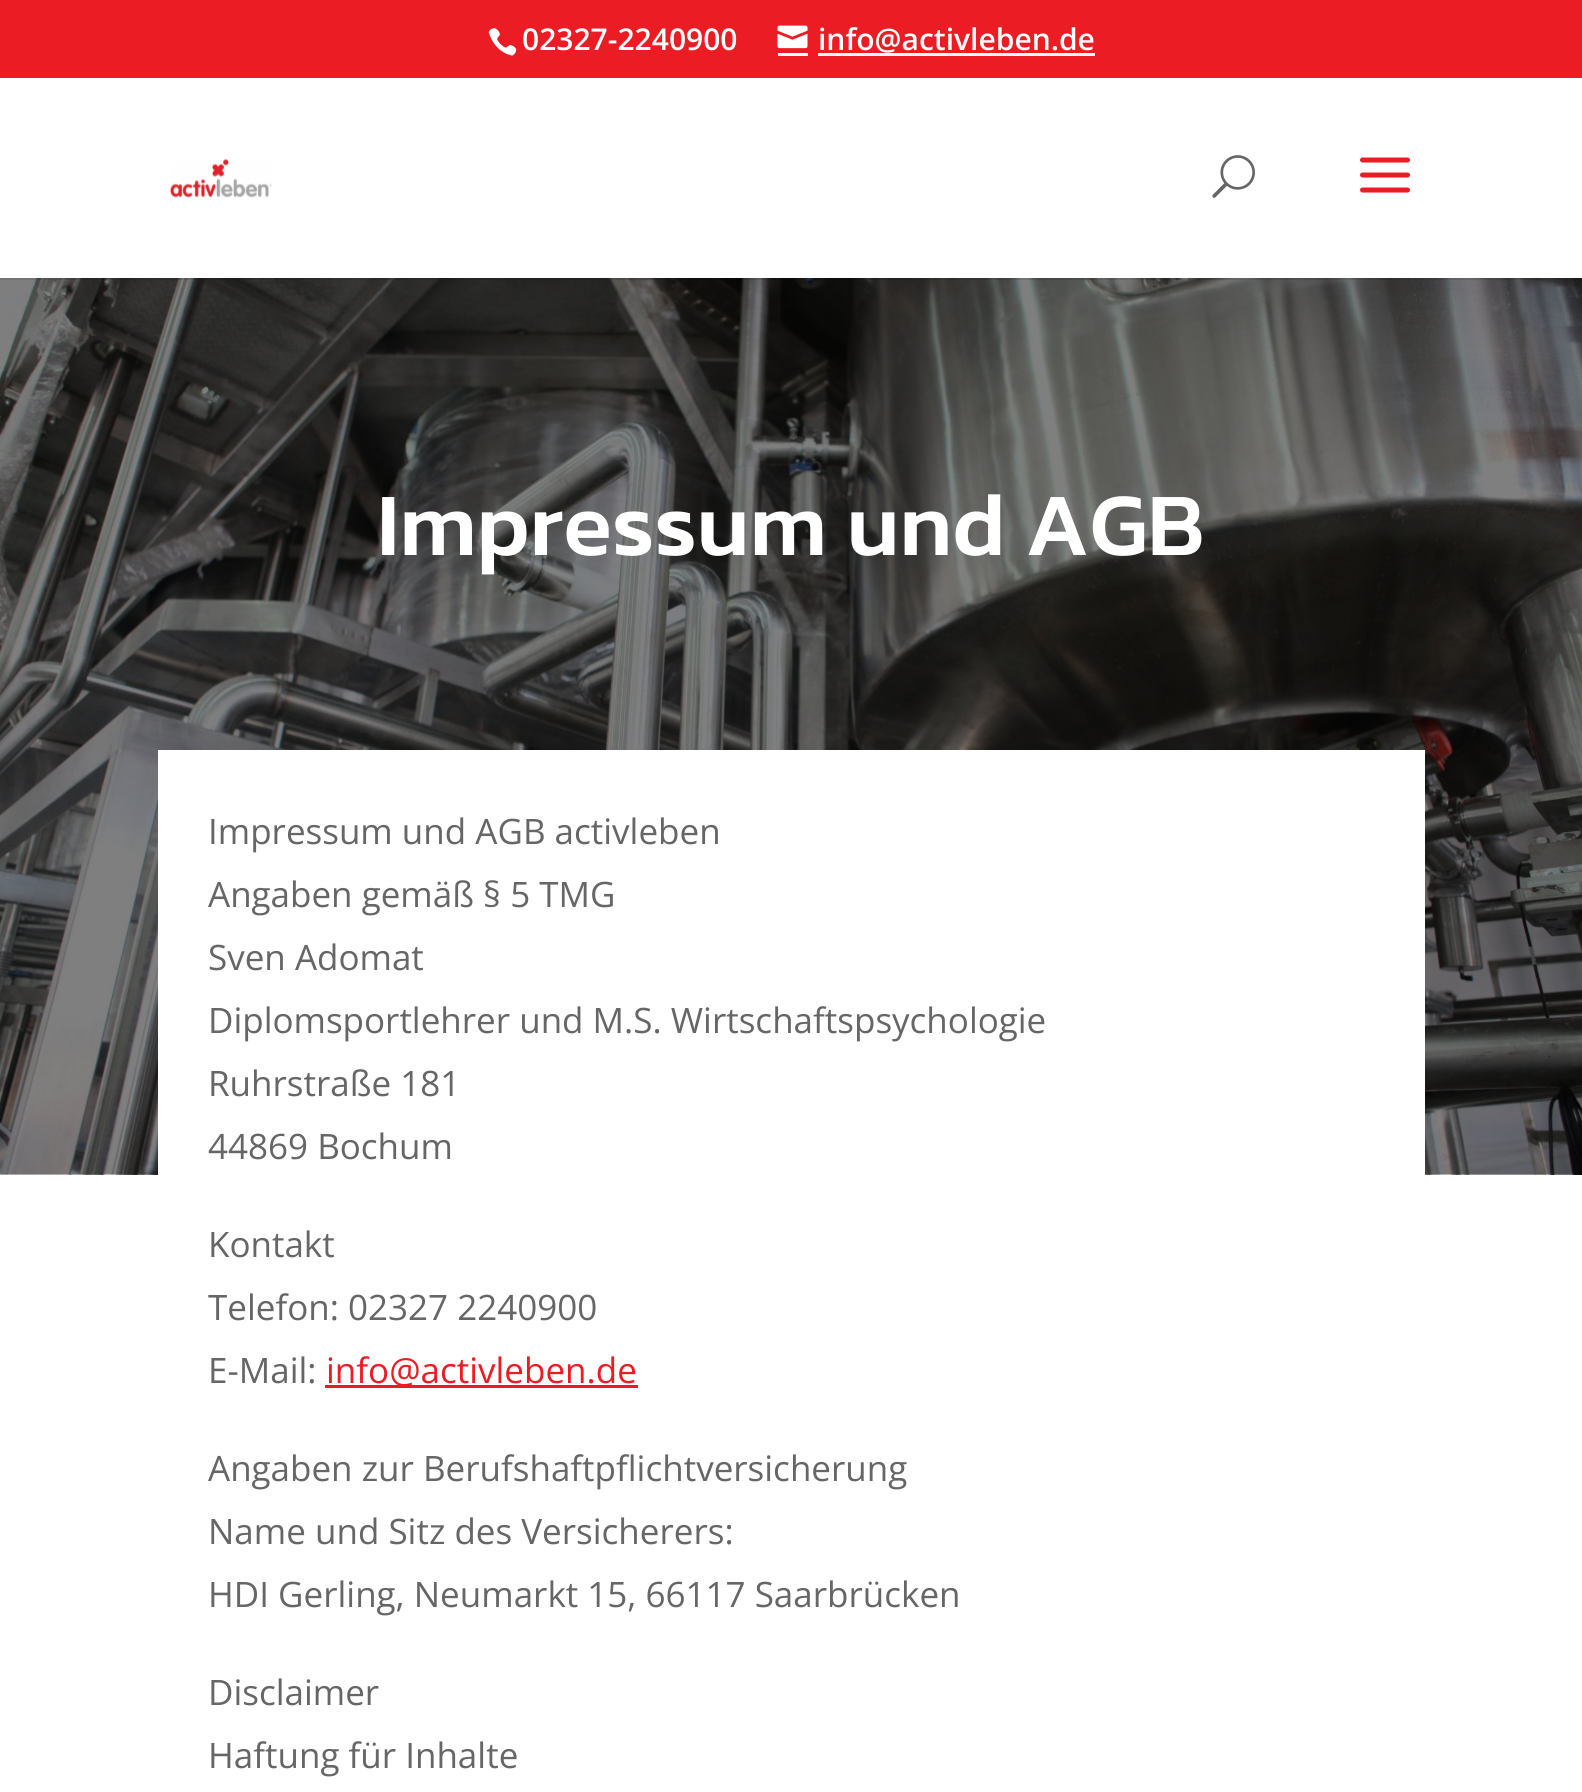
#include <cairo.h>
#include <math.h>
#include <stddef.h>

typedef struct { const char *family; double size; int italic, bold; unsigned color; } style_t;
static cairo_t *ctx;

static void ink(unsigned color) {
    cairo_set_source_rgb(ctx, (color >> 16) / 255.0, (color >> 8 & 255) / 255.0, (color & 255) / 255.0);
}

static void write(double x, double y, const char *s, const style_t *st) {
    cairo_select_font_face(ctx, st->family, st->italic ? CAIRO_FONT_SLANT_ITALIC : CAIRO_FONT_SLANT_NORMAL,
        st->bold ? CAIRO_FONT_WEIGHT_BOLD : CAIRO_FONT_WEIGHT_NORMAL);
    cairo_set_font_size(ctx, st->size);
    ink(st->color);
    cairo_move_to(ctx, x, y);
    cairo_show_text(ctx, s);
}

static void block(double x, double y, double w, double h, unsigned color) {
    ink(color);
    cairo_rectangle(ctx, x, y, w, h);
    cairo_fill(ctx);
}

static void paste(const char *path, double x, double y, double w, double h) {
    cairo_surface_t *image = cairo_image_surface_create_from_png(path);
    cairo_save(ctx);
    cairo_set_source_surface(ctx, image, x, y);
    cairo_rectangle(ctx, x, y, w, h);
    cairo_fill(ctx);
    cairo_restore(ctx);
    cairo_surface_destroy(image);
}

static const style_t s1 = {"Open Sans SemiBold", 30, 0, 0, 0xffffff};
static const style_t s2 = {"Kanit Medium", 90, 0, 0, 0xffffff};
static const style_t s3 = {"Open Sans", 35, 0, 0, 0x666666};
static const style_t s4 = {"Open Sans", 35, 0, 0, 0xeb1c24};

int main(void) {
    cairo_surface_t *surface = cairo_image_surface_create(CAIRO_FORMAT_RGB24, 1582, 1792);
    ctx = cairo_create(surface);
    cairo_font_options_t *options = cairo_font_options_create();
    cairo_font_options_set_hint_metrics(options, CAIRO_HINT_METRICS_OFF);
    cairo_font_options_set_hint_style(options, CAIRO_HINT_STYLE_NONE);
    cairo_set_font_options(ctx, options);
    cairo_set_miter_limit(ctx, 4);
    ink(0xffffff);
    cairo_paint(ctx);
    block(0, 0, 1582, 78, 0xeb1c24);
    paste("pic1.png", 488, 28, 29, 28);
    write(522, 50, "02327-2240900", &s1);
    paste("pic2.png", 777, 25, 31, 24);
    write(818, 50, "info@activleben.de", &s1);
    block(778, 53, 30, 3, 0xffffff);
    block(818, 53, 277, 3, 0xffffff);
    paste("pic6.png", 0, 278, 1582, 897);
    cairo_set_source_rgba(ctx, 0, 0, 0, 0.1);
    cairo_new_path(ctx);
    cairo_move_to(ctx, 0, 278);
    cairo_line_to(ctx, 0, 280);
    cairo_line_to(ctx, 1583, 280);
    cairo_line_to(ctx, 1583, 80);
    cairo_line_to(ctx, 1582, 80);
    cairo_line_to(ctx, 1582, 278);
    cairo_close_path(ctx);
    cairo_fill(ctx);
    paste("pic3.png", 170, 159, 102, 39);
    paste("pic4.png", 1212, 155, 43, 43);
    paste("pic5.png", 1360, 157, 50, 36);
    write(377, 555, "Impressum und AGB", &s2);
    block(158, 750, 1267, 425, 0xffffff);
    write(208, 844, "Impressum und AGB activleben", &s3);
    write(208, 907, "Angaben gemäß § 5 TMG", &s3);
    write(208, 970, "Sven Adomat", &s3);
    write(208, 1033, "Diplomsportlehrer und M.S. Wirtschaftspsychologie", &s3);
    write(208, 1096, "Ruhrstraße 181", &s3);
    write(208, 1159, "44869 Bochum", &s3);
    write(208, 1257, "Kontakt", &s3);
    write(208, 1320, "Telefon: 02327 2240900", &s3);
    write(208, 1383, "E-Mail:", &s3);
    block(325, 1385, 313, 3, 0xeb1c24);
    write(326, 1383, "info@activleben.de", &s4);
    write(208, 1481, "Angaben zur Berufshaftpflichtversicherung", &s3);
    write(208, 1544, "Name und Sitz des Versicherers:", &s3);
    write(208, 1607, "HDI Gerling, Neumarkt 15, 66117 Saarbrücken", &s3);
    write(208, 1705, "Disclaimer", &s3);
    write(208, 1768, "Haftung für Inhalte", &s3);
    cairo_surface_write_to_png(surface, "screenshot.png");
    cairo_font_options_destroy(options);
    cairo_destroy(ctx);
    cairo_surface_destroy(surface);
    return 0;
}
